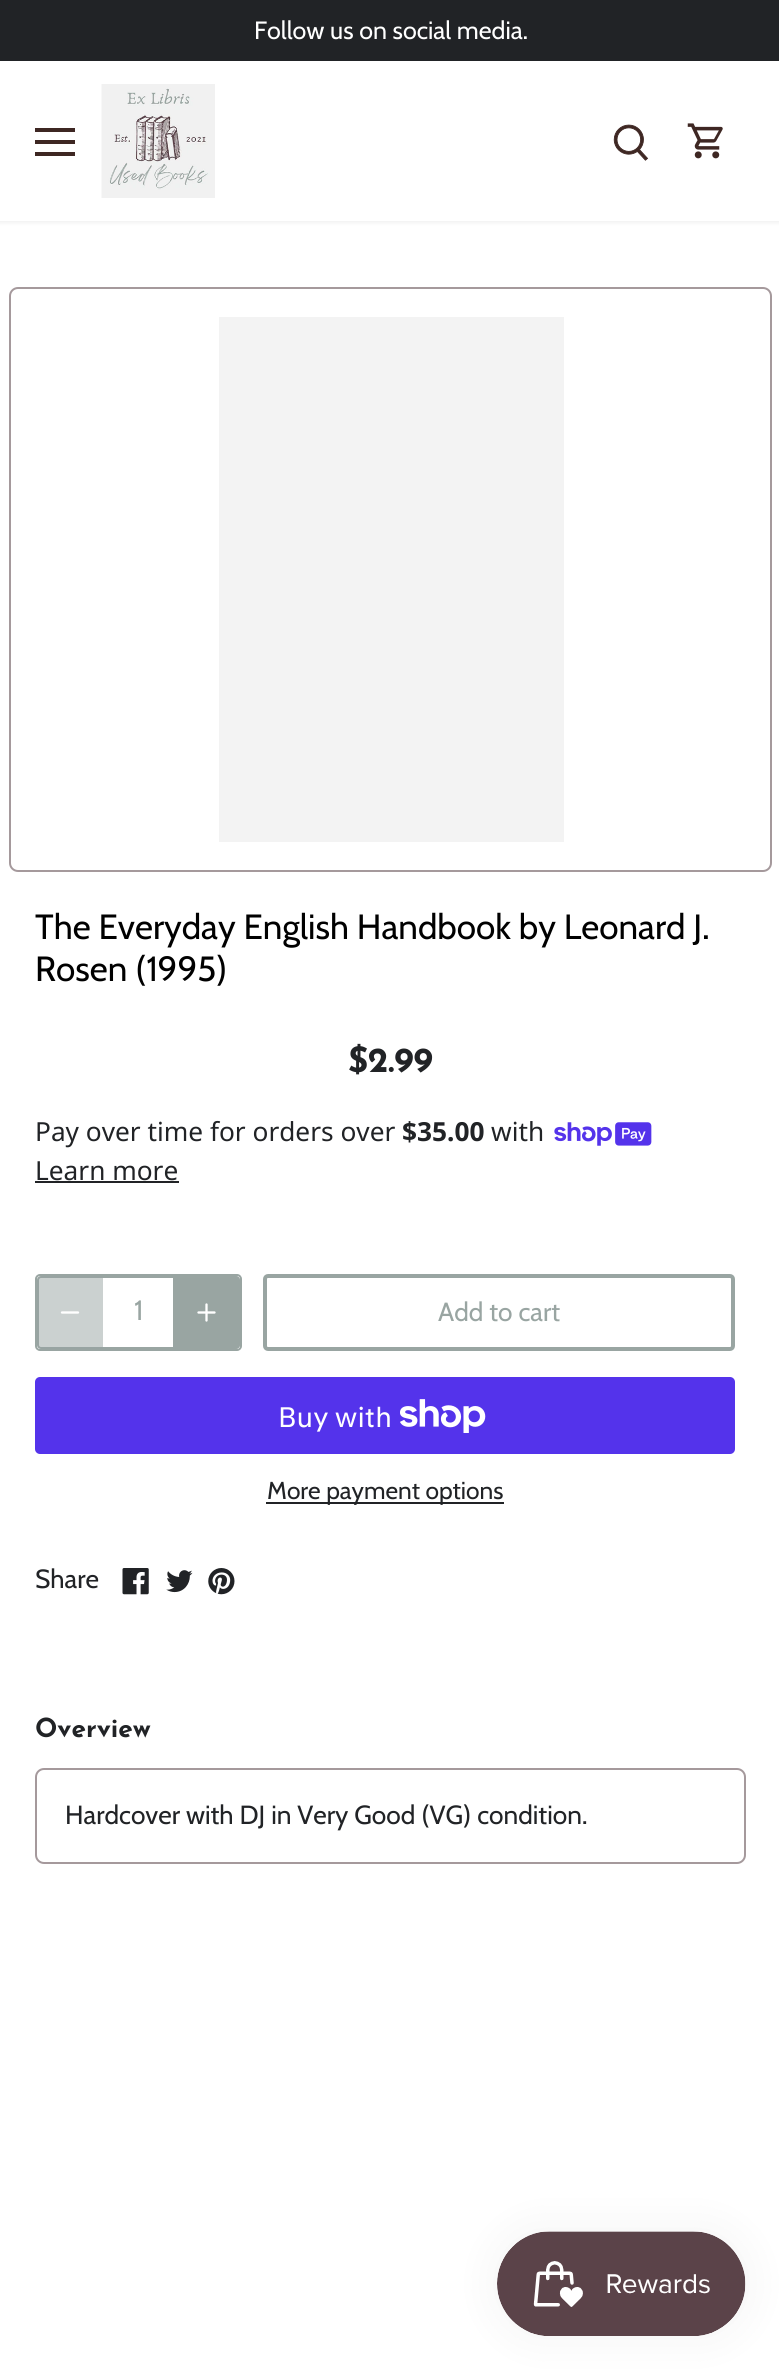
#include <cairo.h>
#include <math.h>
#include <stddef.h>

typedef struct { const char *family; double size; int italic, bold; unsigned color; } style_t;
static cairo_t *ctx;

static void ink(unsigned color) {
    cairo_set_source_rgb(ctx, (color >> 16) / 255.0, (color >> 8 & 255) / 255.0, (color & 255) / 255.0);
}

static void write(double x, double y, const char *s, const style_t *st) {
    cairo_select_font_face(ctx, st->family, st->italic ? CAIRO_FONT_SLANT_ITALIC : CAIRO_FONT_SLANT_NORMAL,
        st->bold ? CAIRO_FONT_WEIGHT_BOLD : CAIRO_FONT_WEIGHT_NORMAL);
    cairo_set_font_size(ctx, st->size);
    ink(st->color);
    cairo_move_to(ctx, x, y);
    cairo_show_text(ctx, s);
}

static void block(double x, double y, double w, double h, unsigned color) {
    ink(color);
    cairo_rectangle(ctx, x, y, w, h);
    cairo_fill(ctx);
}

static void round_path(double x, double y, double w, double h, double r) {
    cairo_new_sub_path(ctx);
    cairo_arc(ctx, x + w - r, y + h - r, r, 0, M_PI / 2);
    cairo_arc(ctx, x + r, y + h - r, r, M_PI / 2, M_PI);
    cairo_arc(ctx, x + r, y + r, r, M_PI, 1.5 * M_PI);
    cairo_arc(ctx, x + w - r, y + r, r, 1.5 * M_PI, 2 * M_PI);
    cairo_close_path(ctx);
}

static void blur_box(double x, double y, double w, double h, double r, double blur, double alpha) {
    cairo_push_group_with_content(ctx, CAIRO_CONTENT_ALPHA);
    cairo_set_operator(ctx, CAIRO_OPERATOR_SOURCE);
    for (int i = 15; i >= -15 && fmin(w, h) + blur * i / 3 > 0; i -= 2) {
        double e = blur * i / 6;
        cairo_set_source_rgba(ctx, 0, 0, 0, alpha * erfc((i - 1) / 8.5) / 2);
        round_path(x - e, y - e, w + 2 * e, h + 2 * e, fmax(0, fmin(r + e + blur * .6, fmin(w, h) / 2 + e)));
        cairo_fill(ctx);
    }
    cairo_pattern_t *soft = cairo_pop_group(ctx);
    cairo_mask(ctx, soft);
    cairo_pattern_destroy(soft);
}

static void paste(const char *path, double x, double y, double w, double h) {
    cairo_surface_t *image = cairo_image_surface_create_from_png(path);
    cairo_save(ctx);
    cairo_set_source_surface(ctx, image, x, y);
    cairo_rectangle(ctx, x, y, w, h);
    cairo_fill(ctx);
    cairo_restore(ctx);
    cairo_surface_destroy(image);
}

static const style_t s1 = {"Cabin", 25, 0, 0, 0xffffff};
static const style_t s2 = {"Cabin", 35, 0, 0, 0x000000};
static const style_t s3 = {"Josefin Sans", 35, 0, 1, 0x212326};
static const style_t s4 = {"Noto Sans", 26.25, 0, 0, 0x212326};
static const style_t s5 = {"Noto Sans", 26.25, 0, 1, 0x212326};
static const style_t s6 = {"Cabin", 28, 0, 0, 0x99a5a2};
static const style_t s7 = {"Cabin", 26.25, 0, 0, 0x99a5a2};
static const style_t s8 = {"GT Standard", 28, 0, 0, 0xffffff};
static const style_t s9 = {"Cabin", 24.5, 0, 0, 0x212326};
static const style_t s10 = {"Cabin", 26.25, 0, 0, 0x212326};
static const style_t s11 = {"Josefin Sans", 26.25, 0, 1, 0x212326};

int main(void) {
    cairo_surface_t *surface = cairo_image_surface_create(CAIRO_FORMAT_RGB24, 779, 2370);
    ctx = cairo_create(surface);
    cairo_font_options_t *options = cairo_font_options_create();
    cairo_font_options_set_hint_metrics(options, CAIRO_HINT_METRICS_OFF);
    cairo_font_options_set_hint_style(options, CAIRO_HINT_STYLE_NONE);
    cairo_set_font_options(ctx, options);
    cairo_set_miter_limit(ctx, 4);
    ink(0xffffff);
    cairo_paint(ctx);
    ink(0x000000);
    blur_box(-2, 60, 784, 162, 0, 2.5, 0.08);
    block(0, 0, 779, 61, 0x212326);
    write(254, 39, "Follow us on social media.", &s1);
    block(0, 61, 779, 160, 0xffffff);
    block(35, 128, 40, 4, 0x3e2723);
    block(35, 140, 40, 4, 0x3e2723);
    block(35, 152, 40, 4, 0x3e2723);
    paste("pic1.png", 101, 84, 114, 114);
    paste("pic2.png", 613, 124, 36, 37);
    paste("pic3.png", 687, 123, 36, 36);
    round_path(10, 288, 761, 583, 8);
    ink(0xa5999c);
    cairo_stroke(ctx);
    block(219, 317, 345, 525, 0xf3f3f3);
    write(35, 939, "The Everyday English Handbook by Leonard J.", &s2);
    write(35, 981, "Rosen (1995)", &s2);
    write(348, 1072, "$2.99", &s3);
    write(35, 1141, "Pay over time for orders over", &s4);
    write(402, 1141, "$35.00", &s5);
    write(491, 1141, "with", &s4);
    paste("pic4.png", 554, 1122, 98, 24);
    write(35, 1180, "Learn more", &s4);
    block(35, 1181, 144, 2, 0x212326);
    round_path(38, 1277, 201, 71, 3);
    ink(0x99a5a2);
    cairo_stroke(ctx);
    round_path(36, 1275, 205, 75, 4);
    cairo_stroke(ctx);
    cairo_set_source_rgba(ctx, 0.6, 0.647, 0.635, 0.5);
    cairo_new_path(ctx);
    cairo_move_to(ctx, 42, 1276);
    cairo_line_to(ctx, 103, 1276);
    cairo_line_to(ctx, 103, 1349);
    cairo_line_to(ctx, 42, 1349);
    cairo_curve_to(ctx, 39, 1349, 37, 1347, 37, 1344);
    cairo_line_to(ctx, 37, 1281);
    cairo_curve_to(ctx, 37, 1278, 39, 1276, 42, 1276);
    cairo_close_path(ctx);
    cairo_fill(ctx);
    cairo_new_path(ctx);
    cairo_move_to(ctx, 62, 1312.5);
    cairo_line_to(ctx, 78, 1312.5);
    ink(0xffffff);
    cairo_set_line_width(ctx, 2.3);
    cairo_set_line_cap(ctx, CAIRO_LINE_CAP_ROUND);
    cairo_set_line_join(ctx, CAIRO_LINE_JOIN_ROUND);
    cairo_stroke(ctx);
    write(134, 1320, "1", &s6);
    cairo_save(ctx);
    round_path(37, 1276, 203, 73, 4);
    cairo_clip(ctx);
    cairo_new_path(ctx);
    cairo_move_to(ctx, 173, 1276);
    cairo_line_to(ctx, 235, 1276);
    cairo_curve_to(ctx, 238, 1276, 240, 1278, 240, 1281);
    cairo_line_to(ctx, 240, 1344);
    cairo_curve_to(ctx, 240, 1347, 238, 1349, 235, 1349);
    cairo_line_to(ctx, 173, 1349);
    cairo_close_path(ctx);
    cairo_fill(ctx);
    cairo_restore(ctx);
    cairo_new_path(ctx);
    cairo_move_to(ctx, 206.5, 1304.5);
    cairo_line_to(ctx, 206.5, 1320.5);
    cairo_move_to(ctx, 198.5, 1312.5);
    cairo_line_to(ctx, 214.5, 1312.5);
    ink(0xffffff);
    cairo_stroke(ctx);
    round_path(265, 1276, 468, 73, 3);
    ink(0x99a5a2);
    cairo_set_line_width(ctx, 4);
    cairo_set_line_cap(ctx, CAIRO_LINE_CAP_BUTT);
    cairo_set_line_join(ctx, CAIRO_LINE_JOIN_MITER);
    cairo_stroke(ctx);
    write(438, 1321, "Add to cart", &s7);
    cairo_new_path(ctx);
    cairo_move_to(ctx, 491.5, 1303.5);
    cairo_curve_to(ctx, 496, 1299, 503.5, 1299, 507.5, 1303.5);
    ink(0xffffff);
    cairo_set_line_width(ctx, 3.5);
    cairo_stroke(ctx);
    ink(0x5433eb);
    round_path(35, 1377, 700, 77, 5);
    cairo_fill(ctx);
    write(278, 1427, "Buy with", &s8);
    paste("pic5.png", 400, 1399, 86, 34);
    block(266, 1502, 238, 2, 0x212326);
    write(267, 1499, "More payment options", &s9);
    write(35, 1588, "Share", &s10);
    paste("pic6.png", 122, 1568, 27, 27);
    paste("pic7.png", 166, 1570, 27, 23);
    paste("pic8.png", 208, 1568, 27, 27);
    write(35, 1737, "Overview", &s11);
    round_path(36, 1769, 709, 94, 8);
    ink(0xa5999c);
    cairo_set_line_width(ctx, 2);
    cairo_stroke(ctx);
    write(65, 1824, "Hardcover with DJ in Very Good (VG) condition.", &s10);
    ink(0x000000);
    blur_box(497, 2231, 249, 105, 52.5, 22, 0.05);
    paste("pic9.png", 497, 2231, 249, 105);
    cairo_surface_write_to_png(surface, "screenshot.png");
    cairo_font_options_destroy(options);
    cairo_destroy(ctx);
    cairo_surface_destroy(surface);
    return 0;
}
